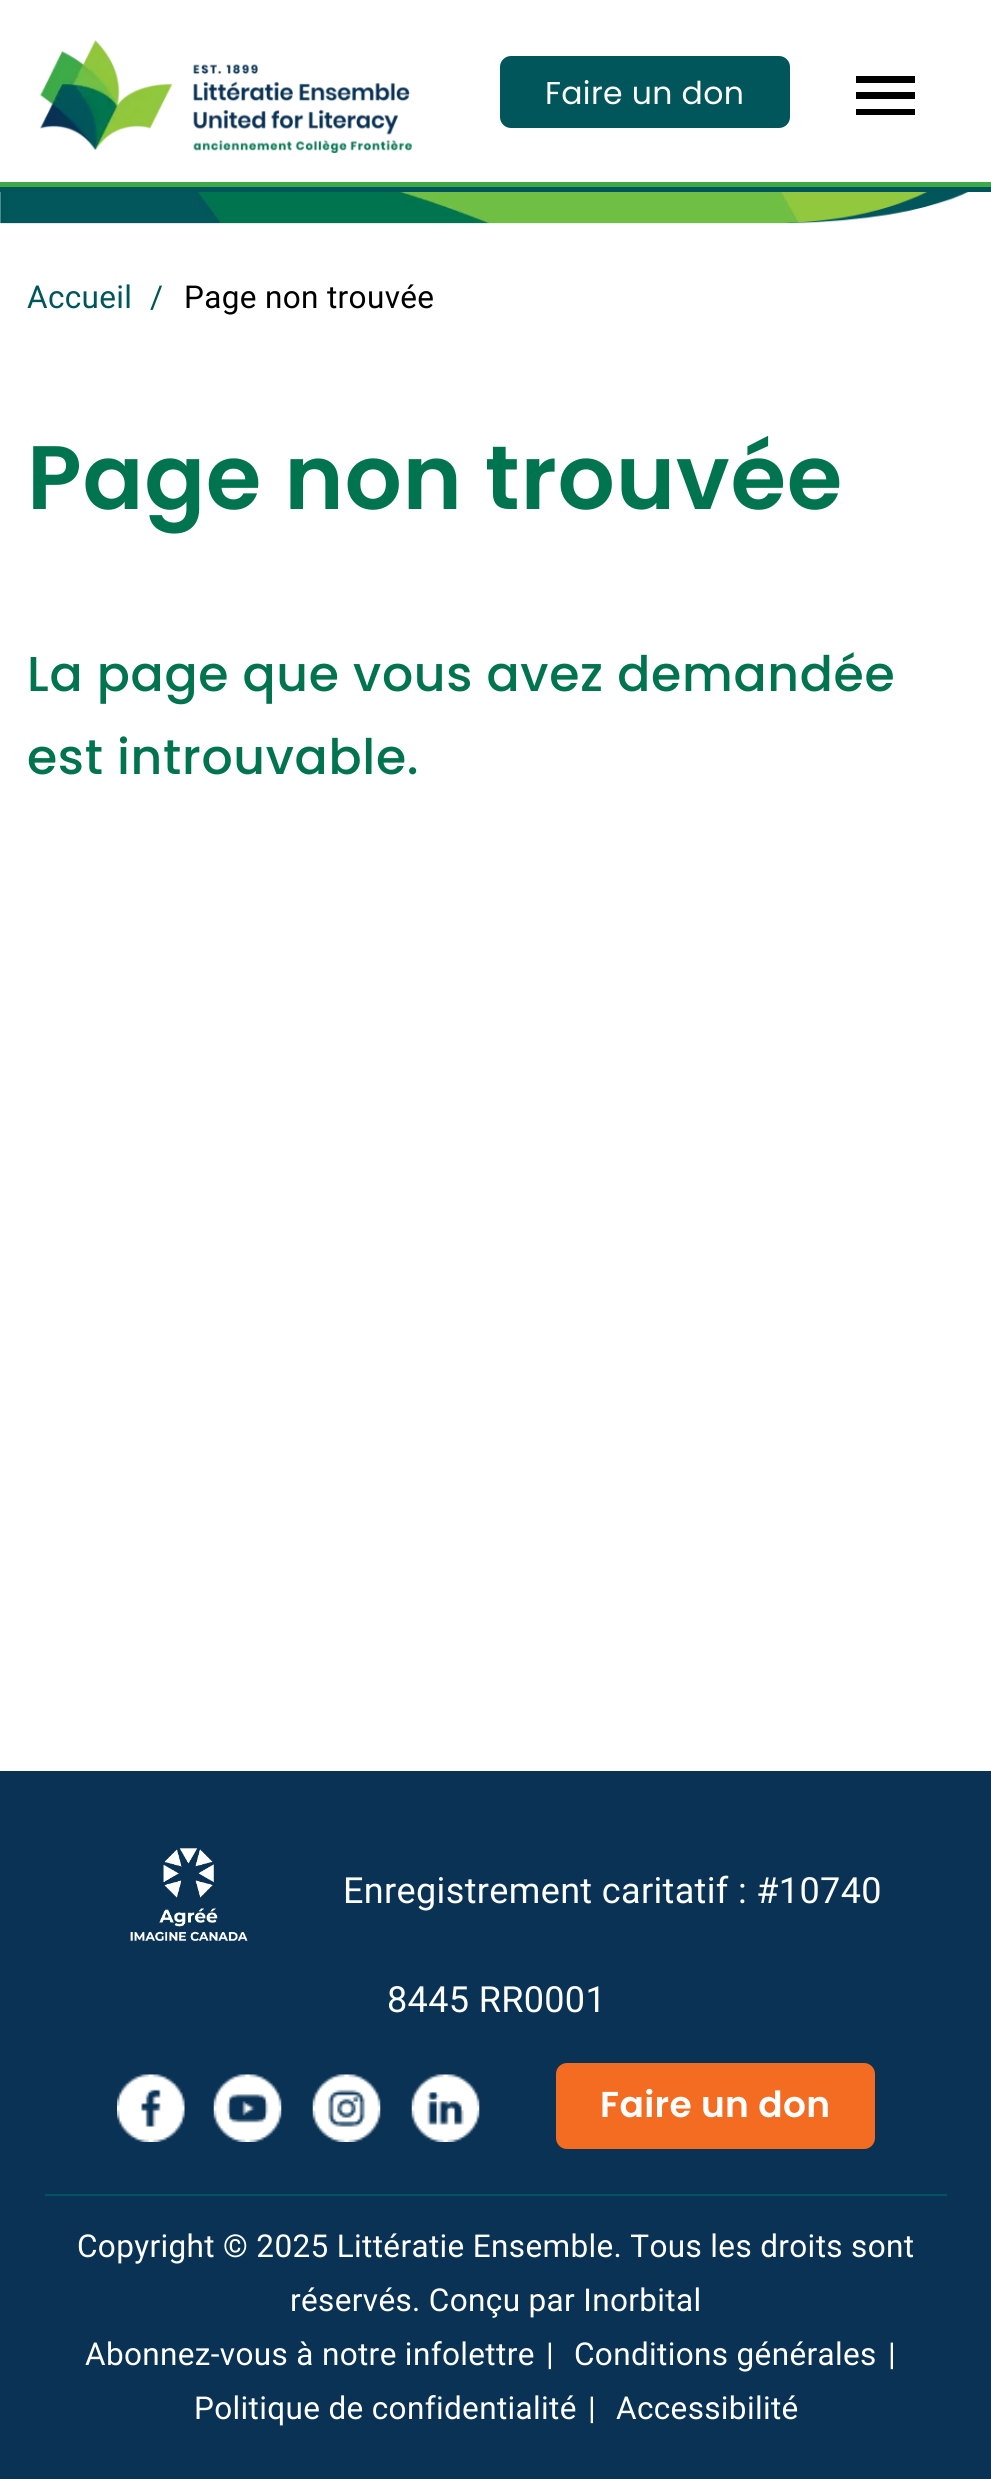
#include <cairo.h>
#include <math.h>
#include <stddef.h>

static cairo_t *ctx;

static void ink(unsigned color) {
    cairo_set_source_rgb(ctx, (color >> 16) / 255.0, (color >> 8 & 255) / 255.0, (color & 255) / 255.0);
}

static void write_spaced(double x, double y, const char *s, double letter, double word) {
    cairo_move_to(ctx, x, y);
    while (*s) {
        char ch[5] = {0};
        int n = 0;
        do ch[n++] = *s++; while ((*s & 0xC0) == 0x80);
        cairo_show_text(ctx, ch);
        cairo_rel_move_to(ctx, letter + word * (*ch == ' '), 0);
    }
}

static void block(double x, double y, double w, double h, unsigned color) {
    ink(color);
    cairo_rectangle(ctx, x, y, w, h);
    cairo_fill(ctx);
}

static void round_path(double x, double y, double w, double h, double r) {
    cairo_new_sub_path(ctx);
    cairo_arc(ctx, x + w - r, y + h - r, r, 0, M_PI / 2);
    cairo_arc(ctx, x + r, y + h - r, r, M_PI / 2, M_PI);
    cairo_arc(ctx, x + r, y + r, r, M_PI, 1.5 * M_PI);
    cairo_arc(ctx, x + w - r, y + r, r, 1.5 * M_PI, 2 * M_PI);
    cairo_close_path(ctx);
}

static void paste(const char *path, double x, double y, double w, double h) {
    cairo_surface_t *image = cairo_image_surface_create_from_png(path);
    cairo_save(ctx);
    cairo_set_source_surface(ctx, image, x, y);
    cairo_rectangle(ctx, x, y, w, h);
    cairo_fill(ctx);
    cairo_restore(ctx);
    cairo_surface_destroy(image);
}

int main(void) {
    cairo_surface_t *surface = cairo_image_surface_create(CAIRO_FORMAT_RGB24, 991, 2479);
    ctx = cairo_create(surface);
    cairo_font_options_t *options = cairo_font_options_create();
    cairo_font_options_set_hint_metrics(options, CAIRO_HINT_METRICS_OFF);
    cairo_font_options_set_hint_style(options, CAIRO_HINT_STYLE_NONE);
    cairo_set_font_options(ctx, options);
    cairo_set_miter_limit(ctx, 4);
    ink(0xffffff);
    cairo_paint(ctx);
    block(0, 187, 991, 5, 0x00565a);
    block(0, 182, 991, 5, 0x3fa947);
    paste("pic1.png", 40, 40, 372, 113);
    ink(0x00565a);
    round_path(500, 56, 290, 72, 11);
    cairo_fill(ctx);
    cairo_select_font_face(ctx, "Poppins", CAIRO_FONT_SLANT_NORMAL, CAIRO_FONT_WEIGHT_NORMAL);
    cairo_set_font_size(ctx, 31.5);
    ink(0xffffff);
    write_spaced(545, 104, "Faire un don", 0.35, 0);
    ink(0x000000);
    cairo_new_path(ctx);
    cairo_move_to(ctx, 856, 76);
    cairo_line_to(ctx, 915, 76);
    cairo_line_to(ctx, 915, 83);
    cairo_line_to(ctx, 856, 83);
    cairo_close_path(ctx);
    cairo_move_to(ctx, 856, 99);
    cairo_line_to(ctx, 856, 92);
    cairo_line_to(ctx, 915, 92);
    cairo_line_to(ctx, 915, 99);
    cairo_close_path(ctx);
    cairo_move_to(ctx, 856, 115);
    cairo_line_to(ctx, 856, 109);
    cairo_line_to(ctx, 915, 109);
    cairo_line_to(ctx, 915, 115);
    cairo_close_path(ctx);
    cairo_fill(ctx);
    paste("pic2.png", 0, 192, 991, 32);
    cairo_select_font_face(ctx, "Roboto", CAIRO_FONT_SLANT_NORMAL, CAIRO_FONT_WEIGHT_NORMAL);
    ink(0x00565a);
    write_spaced(27, 308, "Accueil", 0.35, 0);
    write_spaced(150, 308, "/", 0.35, 0);
    ink(0x000000);
    write_spaced(184, 308, "Page non trouvée", 0.35, 0);
    cairo_select_font_face(ctx, "Poppins SemiBold", CAIRO_FONT_SLANT_NORMAL, CAIRO_FONT_WEIGHT_NORMAL);
    cairo_set_font_size(ctx, 90);
    ink(0x00734f);
    write_spaced(27, 509, "Page non trouvée", 0.7, 0);
    cairo_select_font_face(ctx, "Poppins Medium", CAIRO_FONT_SLANT_NORMAL, CAIRO_FONT_WEIGHT_NORMAL);
    cairo_set_font_size(ctx, 48.9);
    write_spaced(27, 691, "La page que vous avez demandée", 0.7, 0);
    write_spaced(27, 774, "est introuvable.", 0.7, 0);
    block(0, 1771, 991, 708, 0x093254);
    paste("pic3.png", 130, 1848, 118, 93);
    cairo_select_font_face(ctx, "Roboto", CAIRO_FONT_SLANT_NORMAL, CAIRO_FONT_WEIGHT_NORMAL);
    cairo_set_font_size(ctx, 36);
    ink(0xffffff);
    write_spaced(343, 1903, "Enregistrement caritatif : #10740", 0.35, 0);
    write_spaced(387, 2012, "8445 RR0001", 0.35, 0);
    paste("pic4.png", 117, 2074, 68, 68);
    paste("pic5.png", 213, 2074, 69, 68);
    paste("pic6.png", 312, 2074, 69, 68);
    paste("pic7.png", 411, 2074, 69, 68);
    ink(0xf36c21);
    round_path(556, 2063, 319, 86, 11);
    cairo_fill(ctx);
    cairo_select_font_face(ctx, "Poppins SemiBold", CAIRO_FONT_SLANT_NORMAL, CAIRO_FONT_WEIGHT_NORMAL);
    ink(0xffffff);
    write_spaced(600, 2117, "Faire un don", 0.35, 0);
    block(45, 2194, 902, 2, 0x00565a);
    cairo_select_font_face(ctx, "Roboto", CAIRO_FONT_SLANT_NORMAL, CAIRO_FONT_WEIGHT_NORMAL);
    cairo_set_font_size(ctx, 31.5);
    ink(0xffffff);
    write_spaced(77, 2257, "Copyright © 2025 Littératie Ensemble. Tous les droits sont", 0.35, 0);
    write_spaced(290, 2311, "réservés. Conçu par Inorbital", 0.35, 0);
    write_spaced(85, 2365, "Abonnez-vous à notre infolettre", 0.35, 0);
    write_spaced(546, 2365, "|", 0.35, 0);
    write_spaced(574, 2365, "Conditions générales", 0.35, 0);
    write_spaced(888, 2365, "|", 0.35, 0);
    write_spaced(194, 2419, "Politique de confidentialité", 0.35, 0);
    write_spaced(588, 2419, "|", 0.35, 0);
    write_spaced(616, 2419, "Accessibilité", 0.35, 0);
    cairo_surface_write_to_png(surface, "screenshot.png");
    cairo_font_options_destroy(options);
    cairo_destroy(ctx);
    cairo_surface_destroy(surface);
    return 0;
}
